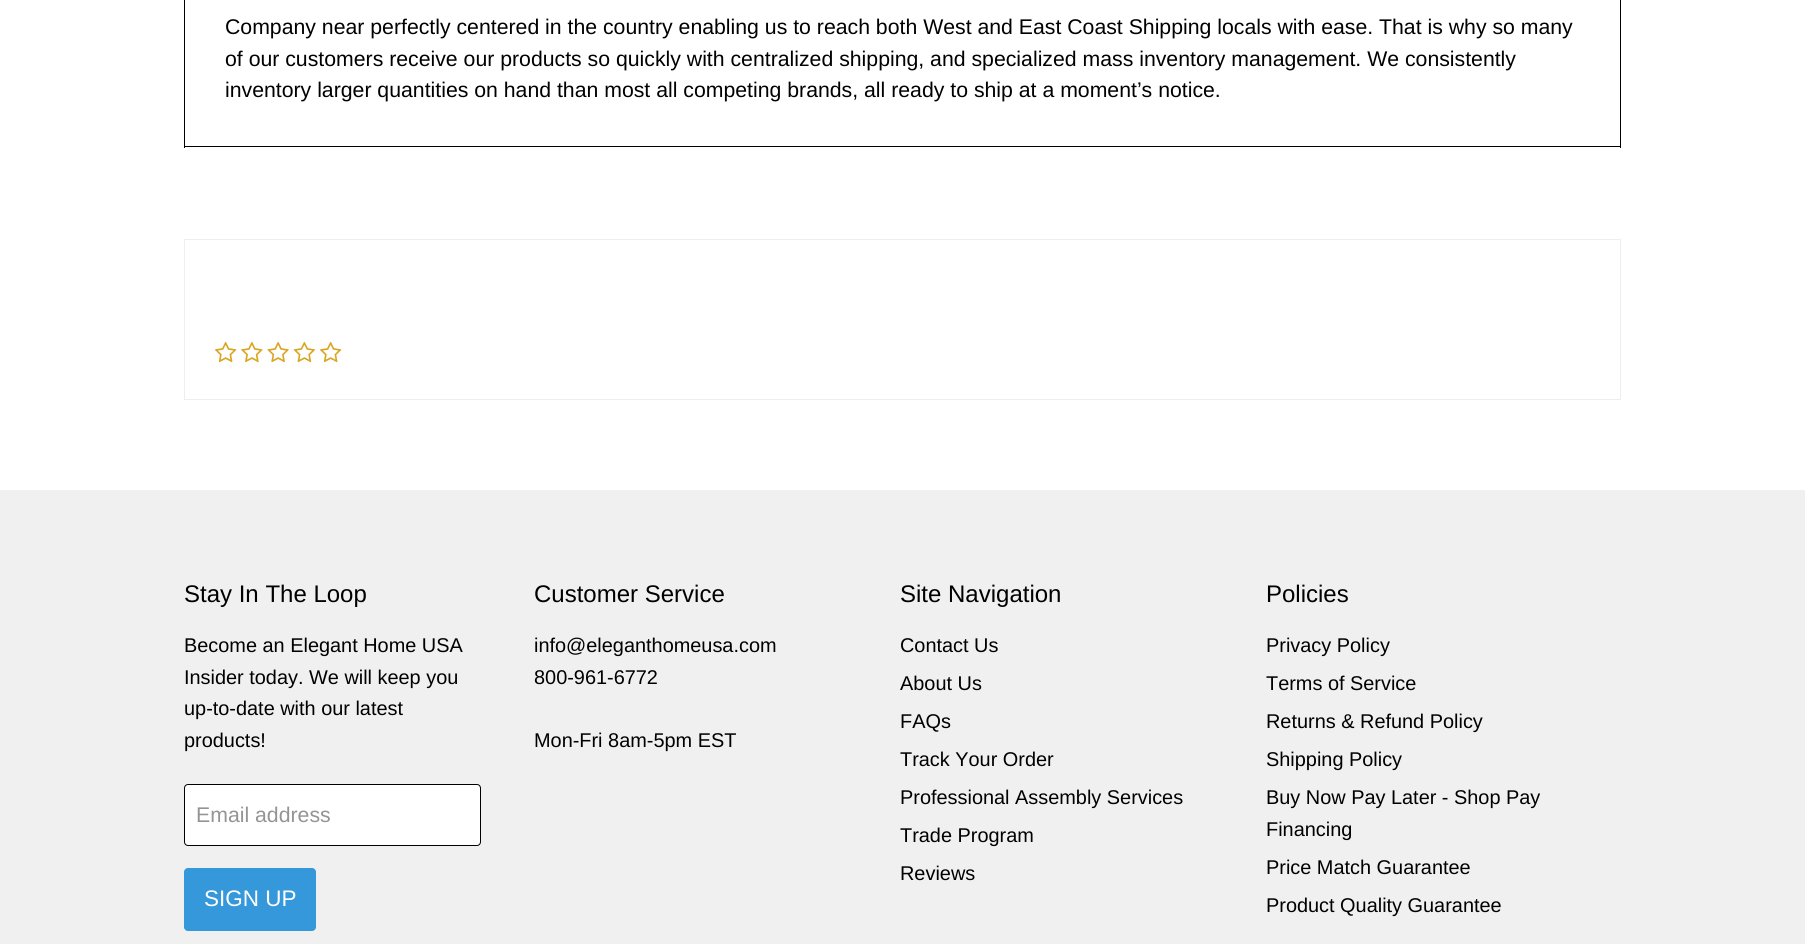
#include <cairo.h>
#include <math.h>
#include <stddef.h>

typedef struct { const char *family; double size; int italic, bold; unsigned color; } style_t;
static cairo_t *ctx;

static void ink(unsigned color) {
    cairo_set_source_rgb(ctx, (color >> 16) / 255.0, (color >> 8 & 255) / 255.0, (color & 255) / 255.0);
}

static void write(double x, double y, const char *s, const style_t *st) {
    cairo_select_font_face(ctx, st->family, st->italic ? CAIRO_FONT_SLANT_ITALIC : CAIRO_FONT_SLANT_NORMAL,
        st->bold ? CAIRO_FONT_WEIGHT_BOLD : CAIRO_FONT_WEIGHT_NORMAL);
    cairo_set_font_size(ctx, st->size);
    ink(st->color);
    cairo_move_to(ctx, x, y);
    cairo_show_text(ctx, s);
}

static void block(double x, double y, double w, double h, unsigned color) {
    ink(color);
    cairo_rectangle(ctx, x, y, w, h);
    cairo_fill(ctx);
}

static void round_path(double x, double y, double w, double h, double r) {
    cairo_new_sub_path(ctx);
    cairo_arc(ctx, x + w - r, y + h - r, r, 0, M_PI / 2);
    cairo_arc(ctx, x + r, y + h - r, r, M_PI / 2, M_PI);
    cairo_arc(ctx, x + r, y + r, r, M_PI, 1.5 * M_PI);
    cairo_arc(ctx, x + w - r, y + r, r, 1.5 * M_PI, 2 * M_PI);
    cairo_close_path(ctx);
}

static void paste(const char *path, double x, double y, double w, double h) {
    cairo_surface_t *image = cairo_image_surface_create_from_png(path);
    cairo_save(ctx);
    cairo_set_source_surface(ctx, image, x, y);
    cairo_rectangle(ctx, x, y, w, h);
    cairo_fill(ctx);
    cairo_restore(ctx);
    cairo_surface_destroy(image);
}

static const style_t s1 = {"Liberation Sans", 21.25, 0, 0, 0x000000};
static const style_t s2 = {"Liberation Sans", 24, 0, 0, 0x000000};
static const style_t s3 = {"Liberation Sans", 19.9, 0, 0, 0x000000};
static const style_t s4 = {"Liberation Sans", 21.25, 0, 0, 0x949494};
static const style_t s5 = {"Liberation Sans", 22.5, 0, 0, 0xffffff};

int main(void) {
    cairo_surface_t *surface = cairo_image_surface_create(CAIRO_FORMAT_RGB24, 1805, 944);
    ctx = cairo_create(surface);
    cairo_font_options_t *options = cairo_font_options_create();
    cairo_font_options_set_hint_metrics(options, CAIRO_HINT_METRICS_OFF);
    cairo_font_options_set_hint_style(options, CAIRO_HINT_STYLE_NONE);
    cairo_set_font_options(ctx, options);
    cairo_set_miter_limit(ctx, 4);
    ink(0xffffff);
    cairo_paint(ctx);
    block(1620, 0, 1, 148, 0x000000);
    block(184, 146, 1437, 1, 0x000000);
    block(184, 0, 1, 148, 0x000000);
    write(225, 34, "Company near perfectly centered in the country enabling us to reach both West and East Coast Shipping locals with ease. That is why so many", &s1);
    write(225, 66, "of our customers receive our products so quickly with centralized shipping, and specialized mass inventory management. We consistently", &s1);
    write(225, 97, "inventory larger quantities on hand than most all competing brands, all ready to ship at a moment’s notice.", &s1);
    cairo_rectangle(ctx, 184.5, 239.5, 1436, 160);
    ink(0xeeeeee);
    cairo_set_line_width(ctx, 1);
    cairo_stroke(ctx);
    paste("pic1.png", 215, 341, 22, 22);
    paste("pic2.png", 241, 342, 22, 21);
    paste("pic3.png", 267, 342, 22, 21);
    paste("pic4.png", 293, 341, 22, 22);
    paste("pic1.png", 320, 341, 22, 22);
    block(0, 490, 1805, 454, 0xf0f0f0);
    write(184, 602, "Stay In The Loop", &s2);
    write(184, 652, "Become an Elegant Home USA", &s3);
    write(184, 684, "Insider today. We will keep you", &s3);
    write(184, 715, "up-to-date with our latest", &s3);
    write(184, 747, "products!", &s3);
    ink(0xffffff);
    round_path(184.5, 784.5, 296, 61, 3.5);
    cairo_fill_preserve(ctx);
    ink(0x000000);
    cairo_stroke(ctx);
    write(196, 822, "Email address", &s4);
    ink(0x3498db);
    round_path(184.5, 868.5, 131, 62, 3.5);
    cairo_fill_preserve(ctx);
    cairo_stroke(ctx);
    write(204, 906, "SIGN UP", &s5);
    write(534, 602, "Customer Service", &s2);
    write(534, 652, "info@eleganthomeusa.com", &s3);
    write(534, 684, "800-961-6772", &s3);
    write(534, 747, "Mon-Fri 8am-5pm EST", &s3);
    write(900, 602, "Site Navigation", &s2);
    write(900, 652, "Contact Us", &s3);
    write(900, 690, "About Us", &s3);
    write(900, 728, "FAQs", &s3);
    write(900, 766, "Track Your Order", &s3);
    write(900, 804, "Professional Assembly Services", &s3);
    write(900, 842, "Trade Program", &s3);
    write(900, 880, "Reviews", &s3);
    write(1266, 602, "Policies", &s2);
    write(1266, 652, "Privacy Policy", &s3);
    write(1266, 690, "Terms of Service", &s3);
    write(1266, 728, "Returns & Refund Policy", &s3);
    write(1266, 766, "Shipping Policy", &s3);
    write(1266, 804, "Buy Now Pay Later - Shop Pay", &s3);
    write(1266, 836, "Financing", &s3);
    write(1266, 874, "Price Match Guarantee", &s3);
    write(1266, 912, "Product Quality Guarantee", &s3);
    cairo_surface_write_to_png(surface, "screenshot.png");
    cairo_font_options_destroy(options);
    cairo_destroy(ctx);
    cairo_surface_destroy(surface);
    return 0;
}
